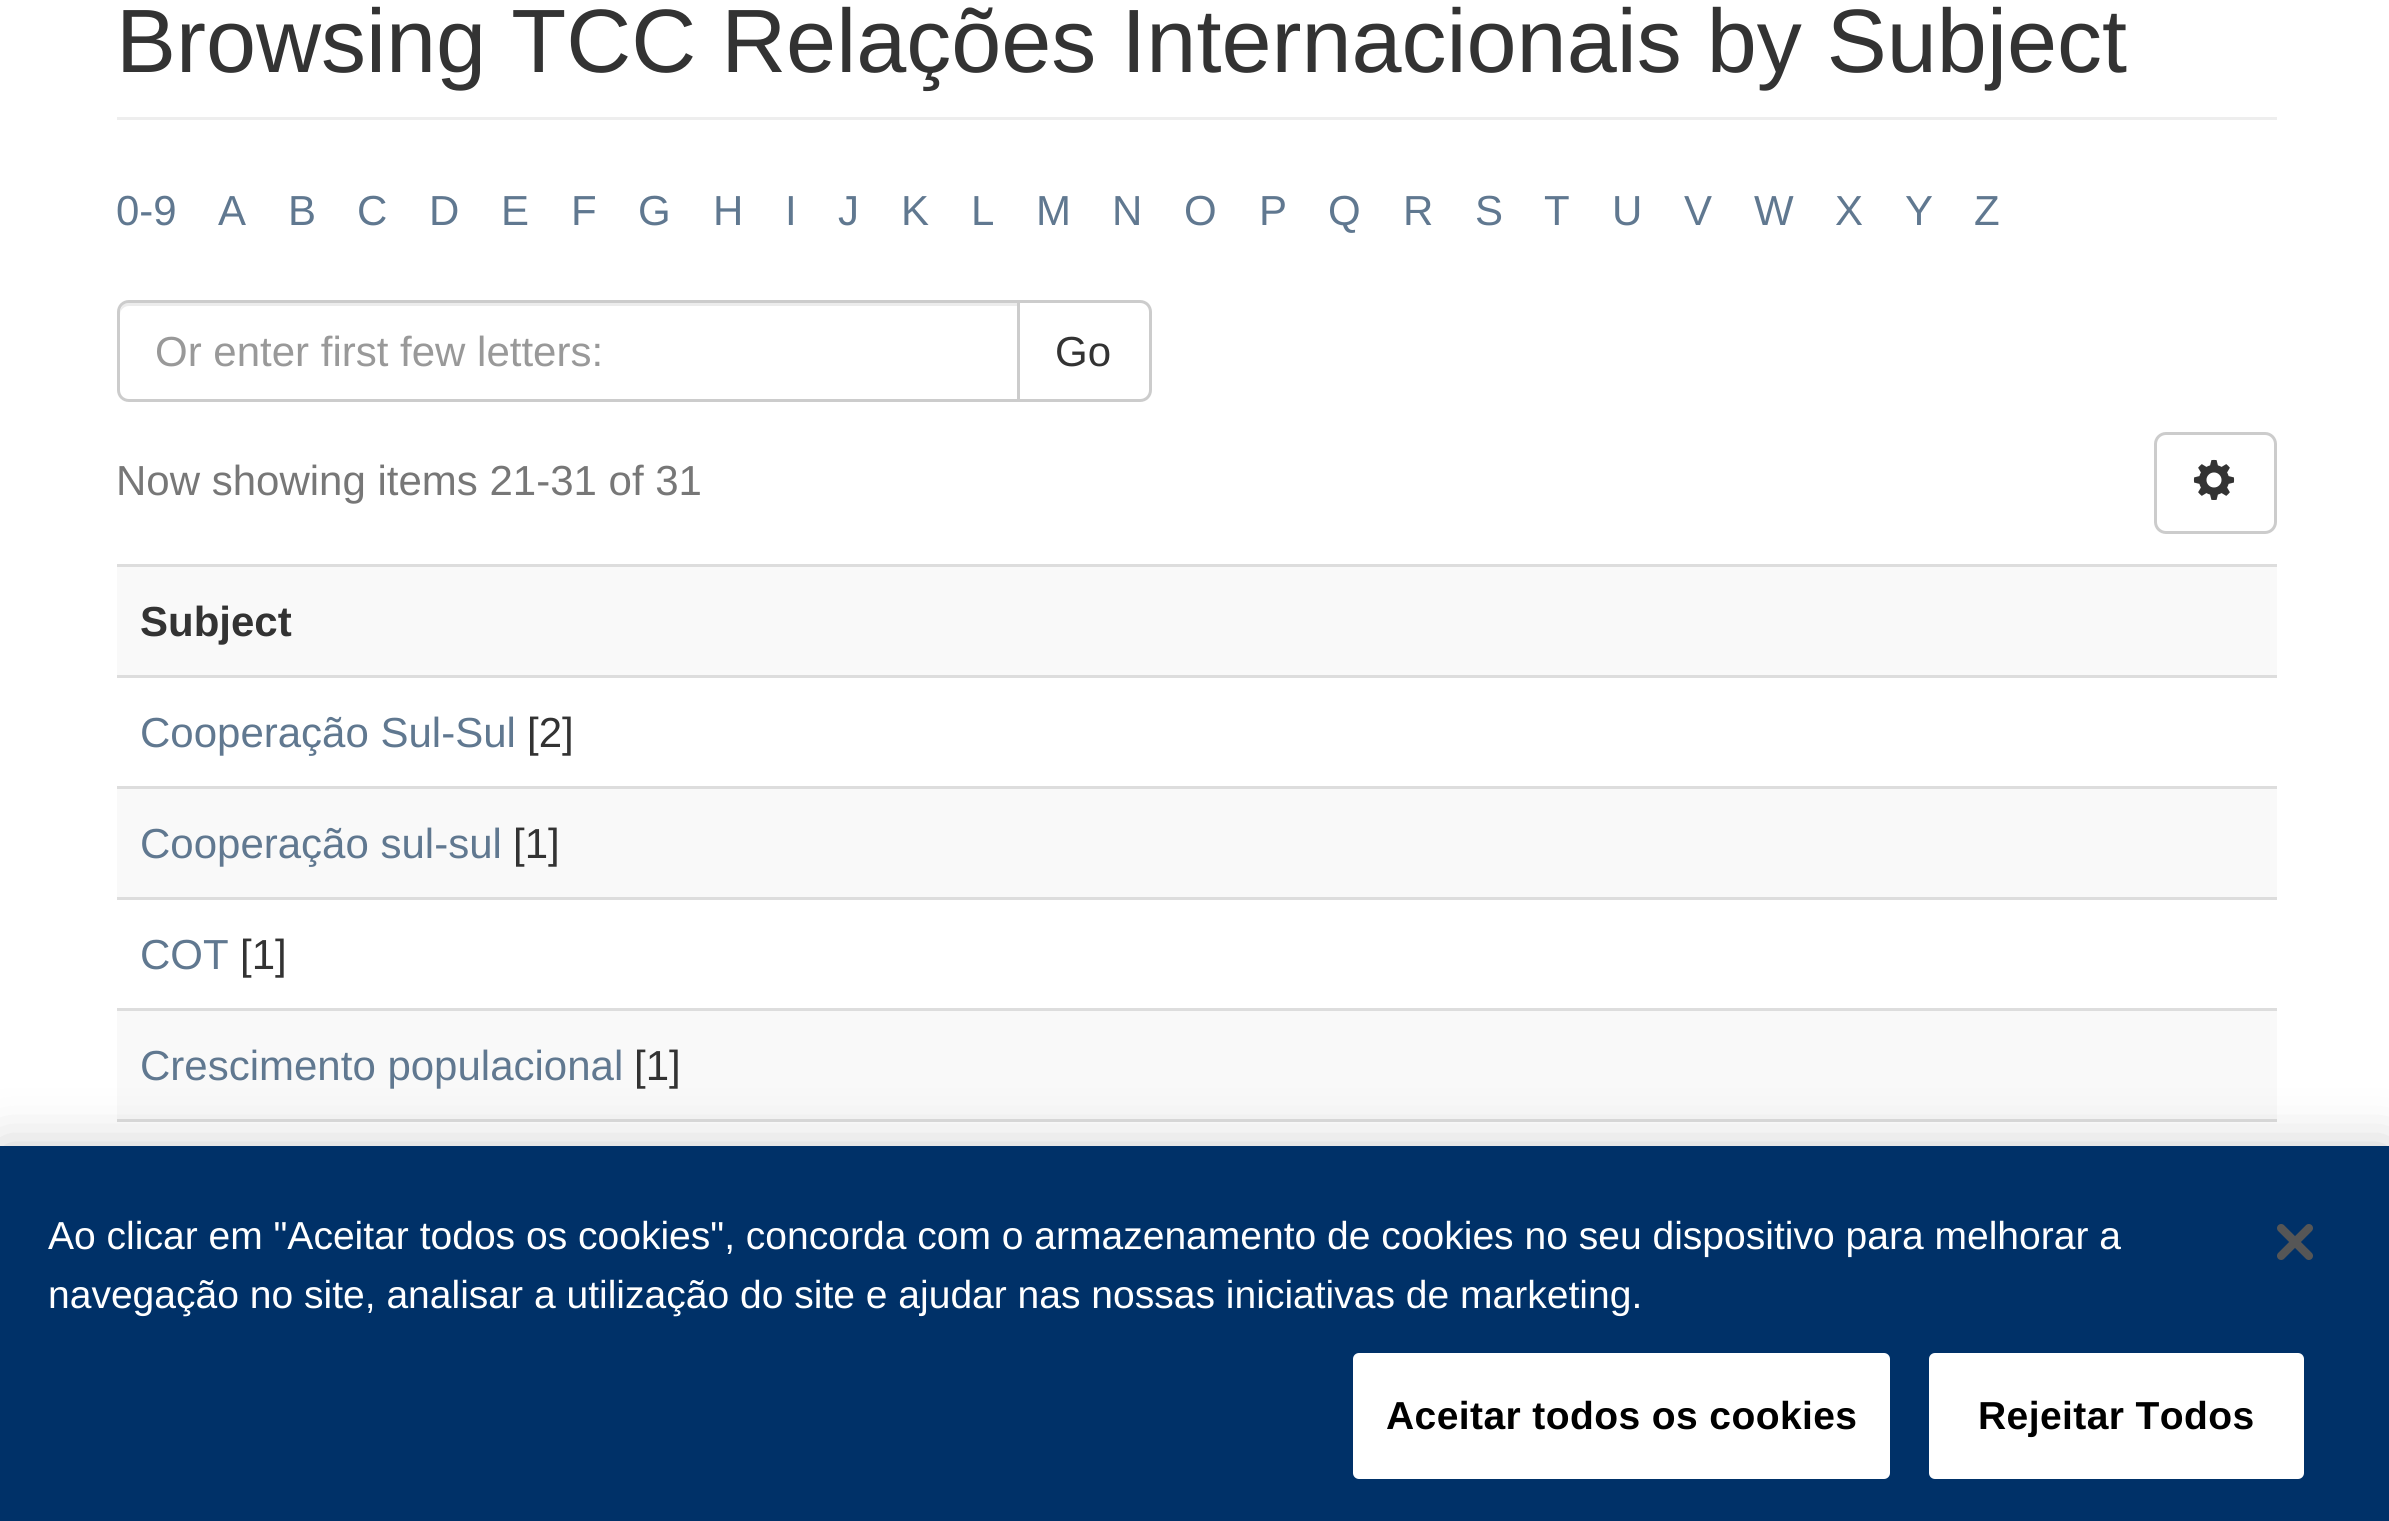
#include <cairo.h>
#include <math.h>
#include <stddef.h>

typedef struct { const char *family; double size; int italic, bold; unsigned color; } style_t;
static cairo_t *ctx;

static void ink(unsigned color) {
    cairo_set_source_rgb(ctx, (color >> 16) / 255.0, (color >> 8 & 255) / 255.0, (color & 255) / 255.0);
}

static void write(double x, double y, const char *s, const style_t *st) {
    cairo_select_font_face(ctx, st->family, st->italic ? CAIRO_FONT_SLANT_ITALIC : CAIRO_FONT_SLANT_NORMAL,
        st->bold ? CAIRO_FONT_WEIGHT_BOLD : CAIRO_FONT_WEIGHT_NORMAL);
    cairo_set_font_size(ctx, st->size);
    ink(st->color);
    cairo_move_to(ctx, x, y);
    cairo_show_text(ctx, s);
}

static void write_spaced(double x, double y, const char *s, double letter, double word) {
    cairo_move_to(ctx, x, y);
    while (*s) {
        char ch[5] = {0};
        int n = 0;
        do ch[n++] = *s++; while ((*s & 0xC0) == 0x80);
        cairo_show_text(ctx, ch);
        cairo_rel_move_to(ctx, letter + word * (*ch == ' '), 0);
    }
}

static void block(double x, double y, double w, double h, unsigned color) {
    ink(color);
    cairo_rectangle(ctx, x, y, w, h);
    cairo_fill(ctx);
}

static void round_path(double x, double y, double w, double h, double r) {
    cairo_new_sub_path(ctx);
    cairo_arc(ctx, x + w - r, y + h - r, r, 0, M_PI / 2);
    cairo_arc(ctx, x + r, y + h - r, r, M_PI / 2, M_PI);
    cairo_arc(ctx, x + r, y + r, r, M_PI, 1.5 * M_PI);
    cairo_arc(ctx, x + w - r, y + r, r, 1.5 * M_PI, 2 * M_PI);
    cairo_close_path(ctx);
}

static void blur_box(double x, double y, double w, double h, double r, double blur, double alpha) {
    cairo_push_group_with_content(ctx, CAIRO_CONTENT_ALPHA);
    cairo_set_operator(ctx, CAIRO_OPERATOR_SOURCE);
    for (int i = 15; i >= -15 && fmin(w, h) + blur * i / 3 > 0; i -= 2) {
        double e = blur * i / 6;
        cairo_set_source_rgba(ctx, 0, 0, 0, alpha * erfc((i - 1) / 8.5) / 2);
        round_path(x - e, y - e, w + 2 * e, h + 2 * e, fmax(0, fmin(r + e + blur * .6, fmin(w, h) / 2 + e)));
        cairo_fill(ctx);
    }
    cairo_pattern_t *soft = cairo_pop_group(ctx);
    cairo_mask(ctx, soft);
    cairo_pattern_destroy(soft);
}

static void paste(const char *path, double x, double y, double w, double h) {
    cairo_surface_t *image = cairo_image_surface_create_from_png(path);
    cairo_save(ctx);
    cairo_set_source_surface(ctx, image, x, y);
    cairo_rectangle(ctx, x, y, w, h);
    cairo_fill(ctx);
    cairo_restore(ctx);
    cairo_surface_destroy(image);
}

static const style_t s1 = {"Liberation Sans", 90, 0, 0, 0x333333};
static const style_t s2 = {"Liberation Sans", 42, 0, 0, 0x607890};
static const style_t s3 = {"Liberation Sans", 42, 0, 0, 0x999999};
static const style_t s4 = {"Liberation Sans", 42, 0, 0, 0x333333};
static const style_t s5 = {"Liberation Sans", 42, 0, 0, 0x777777};
static const style_t s6 = {"Liberation Sans", 42, 0, 1, 0x333333};
static const style_t s7 = {"Liberation Sans", 39.02, 0, 0, 0xffffff};

int main(void) {
    cairo_surface_t *surface = cairo_image_surface_create(CAIRO_FORMAT_RGB24, 2389, 1521);
    ctx = cairo_create(surface);
    cairo_font_options_t *options = cairo_font_options_create();
    cairo_font_options_set_hint_metrics(options, CAIRO_HINT_METRICS_OFF);
    cairo_font_options_set_hint_style(options, CAIRO_HINT_STYLE_NONE);
    cairo_set_font_options(ctx, options);
    cairo_set_miter_limit(ctx, 4);
    ink(0xffffff);
    cairo_paint(ctx);
    block(117, 117, 2160, 3, 0xeeeeee);
    write(116, 72, "Browsing TCC Relações Internacionais by Subject", &s1);
    write(116, 225, "0-9", &s2);
    write(218, 225, "A", &s2);
    write(288, 225, "B", &s2);
    write(357, 225, "C", &s2);
    write(429, 225, "D", &s2);
    write(501, 225, "E", &s2);
    write(571, 225, "F", &s2);
    write(638, 225, "G", &s2);
    write(713, 225, "H", &s2);
    write(785, 225, "I", &s2);
    write(838, 225, "J", &s2);
    write(901, 225, "K", &s2);
    write(971, 225, "L", &s2);
    write(1036, 225, "M", &s2);
    write(1112, 225, "N", &s2);
    write(1184, 225, "O", &s2);
    write(1259, 225, "P", &s2);
    write(1328, 225, "Q", &s2);
    write(1403, 225, "R", &s2);
    write(1475, 225, "S", &s2);
    write(1544, 225, "T", &s2);
    write(1612, 225, "U", &s2);
    write(1684, 225, "V", &s2);
    write(1754, 225, "W", &s2);
    write(1835, 225, "X", &s2);
    write(1905, 225, "Y", &s2);
    write(1974, 225, "Z", &s2);
    cairo_new_path(ctx);
    cairo_move_to(ctx, 1018.5, 301.5);
    cairo_line_to(ctx, 1140, 301.5);
    cairo_curve_to(ctx, 1146, 301.5, 1150.5, 306, 1150.5, 312);
    cairo_line_to(ctx, 1150.5, 390);
    cairo_curve_to(ctx, 1150.5, 396, 1146, 400.5, 1140, 400.5);
    cairo_line_to(ctx, 1018.5, 400.5);
    cairo_close_path(ctx);
    ink(0xcccccc);
    cairo_set_line_width(ctx, 3);
    cairo_stroke(ctx);
    ink(0xffffff);
    cairo_new_path(ctx);
    cairo_move_to(ctx, 129, 300);
    cairo_line_to(ctx, 1020, 300);
    cairo_line_to(ctx, 1020, 402);
    cairo_line_to(ctx, 129, 402);
    cairo_curve_to(ctx, 122.5, 402, 117, 396.5, 117, 390);
    cairo_line_to(ctx, 117, 312);
    cairo_curve_to(ctx, 117, 305.5, 122.5, 300, 129, 300);
    cairo_close_path(ctx);
    cairo_fill(ctx);
    ink(0xececec);
    cairo_new_path(ctx);
    cairo_move_to(ctx, 129, 306);
    cairo_line_to(ctx, 1017, 306);
    cairo_line_to(ctx, 1017, 303);
    cairo_line_to(ctx, 129, 303);
    cairo_curve_to(ctx, 122, 303, 120, 309, 120, 315);
    cairo_curve_to(ctx, 120, 310, 124, 306, 129, 306);
    cairo_close_path(ctx);
    cairo_fill(ctx);
    cairo_new_path(ctx);
    cairo_move_to(ctx, 129, 301.5);
    cairo_line_to(ctx, 1018.5, 301.5);
    cairo_line_to(ctx, 1018.5, 400.5);
    cairo_line_to(ctx, 129, 400.5);
    cairo_curve_to(ctx, 123, 400.5, 118.5, 396, 118.5, 390);
    cairo_line_to(ctx, 118.5, 312);
    cairo_curve_to(ctx, 118.5, 306, 123, 301.5, 129, 301.5);
    cairo_close_path(ctx);
    ink(0xcccccc);
    cairo_stroke(ctx);
    write(155, 366, "Or enter first few letters:", &s3);
    write(1055, 366, "Go", &s4);
    write(116, 495, "Now showing items 21-31 of 31", &s5);
    round_path(2155.5, 433.5, 120, 99, 10.5);
    ink(0xcccccc);
    cairo_stroke(ctx);
    paste("pic1.png", 2193, 459, 42, 41);
    block(117, 567, 2160, 108, 0xf9f9f9);
    block(117, 564, 2160, 3, 0xdddddd);
    write(140, 636, "Subject", &s6);
    block(117, 675, 2160, 3, 0xdddddd);
    write(140, 747, "Cooperação Sul-Sul", &s2);
    write(527, 747, "[2]", &s4);
    block(117, 789, 2160, 108, 0xf9f9f9);
    block(117, 786, 2160, 3, 0xdddddd);
    write(140, 858, "Cooperação sul-sul", &s2);
    write(513, 858, "[1]", &s4);
    block(117, 897, 2160, 3, 0xdddddd);
    write(140, 969, "COT", &s2);
    write(240, 969, "[1]", &s4);
    block(117, 1011, 2160, 108, 0xf9f9f9);
    block(117, 1008, 2160, 3, 0xdddddd);
    write(140, 1080, "Crescimento populacional", &s2);
    write(634, 1080, "[1]", &s4);
    block(117, 1119, 2160, 3, 0xdddddd);
    ink(0x000000);
    blur_box(0, 1146, 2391, 375, 0, 27, 0.2);
    block(0, 1146, 2389, 375, 0x003168);
    write(48, 1249, "Ao clicar em \"Aceitar todos os cookies\", concorda com o armazenamento de cookies no seu dispositivo para melhorar a", &s7);
    write(48, 1308, "navegação no site, analisar a utilização do site e ajudar nas nossas iniciativas de marketing.", &s7);
    round_path(1354.5, 1354.5, 534, 123, 4.5);
    cairo_fill_preserve(ctx);
    cairo_stroke(ctx);
    cairo_select_font_face(ctx, "Liberation Sans", CAIRO_FONT_SLANT_NORMAL, CAIRO_FONT_WEIGHT_BOLD);
    ink(0x000000);
    write_spaced(1386, 1429, "Aceitar todos os cookies", 0.4, 0);
    ink(0xffffff);
    round_path(1930.5, 1354.5, 372, 123, 4.5);
    cairo_fill_preserve(ctx);
    cairo_stroke(ctx);
    ink(0x000000);
    write_spaced(1978, 1429, "Rejeitar Todos", 0.4, 0);
    paste("pic2.png", 2277, 1224, 36, 36);
    cairo_surface_write_to_png(surface, "screenshot.png");
    cairo_font_options_destroy(options);
    cairo_destroy(ctx);
    cairo_surface_destroy(surface);
    return 0;
}
